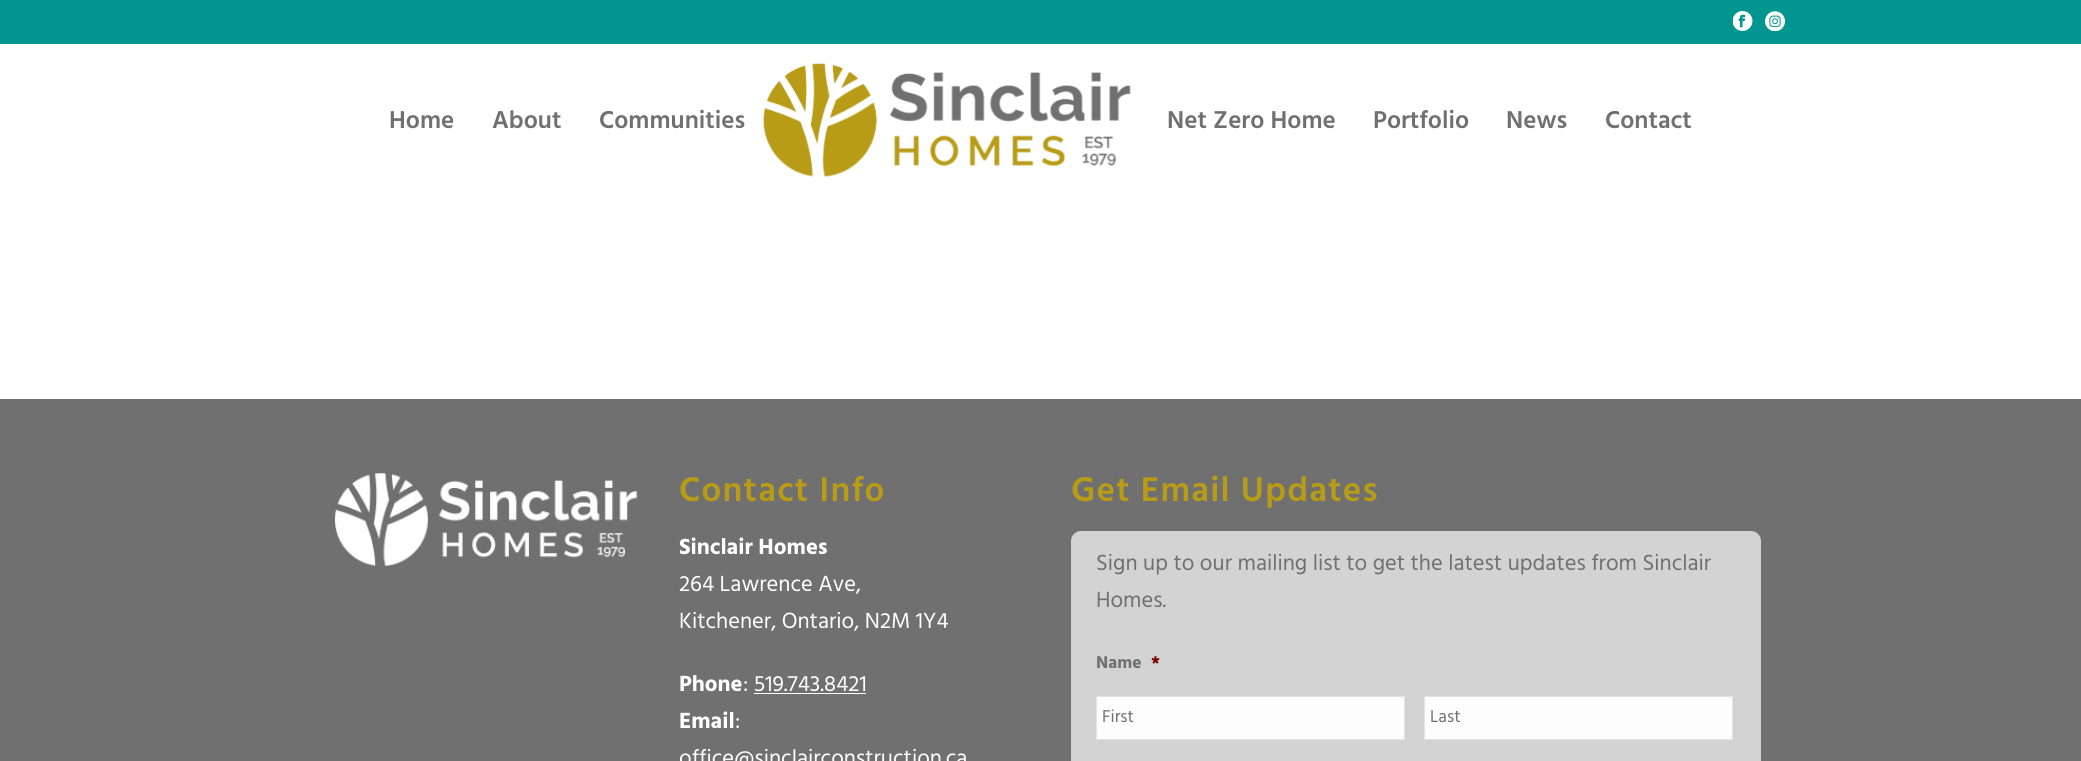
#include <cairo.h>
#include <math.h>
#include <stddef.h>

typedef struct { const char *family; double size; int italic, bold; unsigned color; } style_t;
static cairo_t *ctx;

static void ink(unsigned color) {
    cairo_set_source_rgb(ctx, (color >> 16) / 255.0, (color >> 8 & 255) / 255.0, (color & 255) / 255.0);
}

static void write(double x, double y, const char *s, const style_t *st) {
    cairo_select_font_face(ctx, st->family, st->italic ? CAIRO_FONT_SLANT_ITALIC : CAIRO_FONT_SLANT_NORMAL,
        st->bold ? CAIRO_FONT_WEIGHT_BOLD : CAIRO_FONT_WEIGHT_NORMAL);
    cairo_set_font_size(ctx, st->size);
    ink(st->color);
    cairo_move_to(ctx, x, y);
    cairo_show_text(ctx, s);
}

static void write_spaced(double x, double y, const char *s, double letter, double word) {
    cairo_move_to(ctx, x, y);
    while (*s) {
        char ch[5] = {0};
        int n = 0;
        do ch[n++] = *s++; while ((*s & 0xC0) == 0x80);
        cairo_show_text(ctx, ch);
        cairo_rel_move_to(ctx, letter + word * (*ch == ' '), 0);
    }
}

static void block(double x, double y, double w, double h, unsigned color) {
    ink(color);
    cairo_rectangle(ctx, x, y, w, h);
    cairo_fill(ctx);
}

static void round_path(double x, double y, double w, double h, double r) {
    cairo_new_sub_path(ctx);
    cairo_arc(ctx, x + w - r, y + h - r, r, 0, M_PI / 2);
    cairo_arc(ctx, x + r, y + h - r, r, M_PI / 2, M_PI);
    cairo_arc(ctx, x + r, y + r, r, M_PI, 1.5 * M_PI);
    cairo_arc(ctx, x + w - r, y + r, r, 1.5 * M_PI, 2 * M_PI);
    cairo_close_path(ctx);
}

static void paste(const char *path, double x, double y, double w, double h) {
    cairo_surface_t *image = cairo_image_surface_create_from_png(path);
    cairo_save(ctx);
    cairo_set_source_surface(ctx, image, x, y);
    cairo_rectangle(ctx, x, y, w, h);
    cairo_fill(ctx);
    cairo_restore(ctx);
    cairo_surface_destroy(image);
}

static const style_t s1 = {"Hind SemiBold", 25, 0, 0, 0x707070};
static const style_t s2 = {"Hind", 22.5, 0, 1, 0xffffff};
static const style_t s3 = {"Hind", 22.5, 0, 0, 0xffffff};
static const style_t s4 = {"Hind", 22.5, 0, 0, 0x707070};
static const style_t s5 = {"Hind", 17.5, 0, 1, 0x707070};
static const style_t s6 = {"Hind", 17.5, 0, 1, 0x790000};
static const style_t s7 = {"Hind", 17.5, 0, 0, 0x707070};

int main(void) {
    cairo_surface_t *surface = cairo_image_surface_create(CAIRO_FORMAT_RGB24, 2081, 761);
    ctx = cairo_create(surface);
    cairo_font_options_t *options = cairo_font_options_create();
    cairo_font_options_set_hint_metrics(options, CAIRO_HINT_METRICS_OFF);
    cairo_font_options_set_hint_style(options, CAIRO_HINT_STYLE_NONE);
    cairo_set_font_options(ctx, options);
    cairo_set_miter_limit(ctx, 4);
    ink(0xffffff);
    cairo_paint(ctx);
    block(0, 0, 2081, 44, 0x00958f);
    paste("pic1.png", 1733, 11, 20, 20);
    paste("pic2.png", 1765, 11, 20, 20);
    write(389, 128, "Home", &s1);
    write(492, 128, "About", &s1);
    write(599, 128, "Communities", &s1);
    paste("pic3.png", 763, 63, 368, 114);
    write(1167, 128, "Net Zero Home", &s1);
    write(1373, 128, "Portfolio", &s1);
    write(1506, 128, "News", &s1);
    write(1605, 128, "Contact", &s1);
    block(0, 399, 2081, 362, 0x707070);
    paste("pic4.png", 335, 473, 303, 93);
    cairo_set_font_size(ctx, 35);
    ink(0xb99c16);
    write_spaced(679, 501, "Contact Info", 1.25, 0);
    write(679, 554, "Sinclair Homes", &s2);
    write(679, 591, "264 Lawrence Ave,", &s3);
    write(679, 628, "Kitchener, Ontario, N2M 1Y4", &s3);
    write(679, 691, "Phone", &s2);
    write(743, 691, ": 519.743.8421", &s3);
    block(754, 693, 112, 1, 0xffffff);
    write(679, 728, "Email", &s2);
    write(735, 728, ":", &s3);
    write(679, 765, "office@sinclairconstruction.ca", &s3);
    cairo_select_font_face(ctx, "Hind SemiBold", CAIRO_FONT_SLANT_NORMAL, CAIRO_FONT_WEIGHT_NORMAL);
    cairo_set_font_size(ctx, 35);
    ink(0xb99c16);
    write_spaced(1071, 501, "Get Email Updates", 1.25, 0);
    ink(0xd3d3d3);
    round_path(1071, 531, 690, 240, 10);
    cairo_fill(ctx);
    write(1096, 570, "Sign up to our mailing list to get the latest updates from Sinclair", &s4);
    write(1096, 607, "Homes.", &s4);
    write(1096, 668, "Name", &s5);
    write(1151, 668, "*", &s6);
    ink(0xfdfdfd);
    cairo_rectangle(ctx, 1096.5, 696.5, 308, 43);
    cairo_fill_preserve(ctx);
    ink(0xe3e3e3);
    cairo_set_line_width(ctx, 1);
    cairo_stroke(ctx);
    write(1102, 722, "First", &s7);
    ink(0xfdfdfd);
    cairo_rectangle(ctx, 1424.5, 696.5, 308, 43);
    cairo_fill_preserve(ctx);
    ink(0xe3e3e3);
    cairo_stroke(ctx);
    write(1430, 722, "Last", &s7);
    cairo_surface_write_to_png(surface, "screenshot.png");
    cairo_font_options_destroy(options);
    cairo_destroy(ctx);
    cairo_surface_destroy(surface);
    return 0;
}
